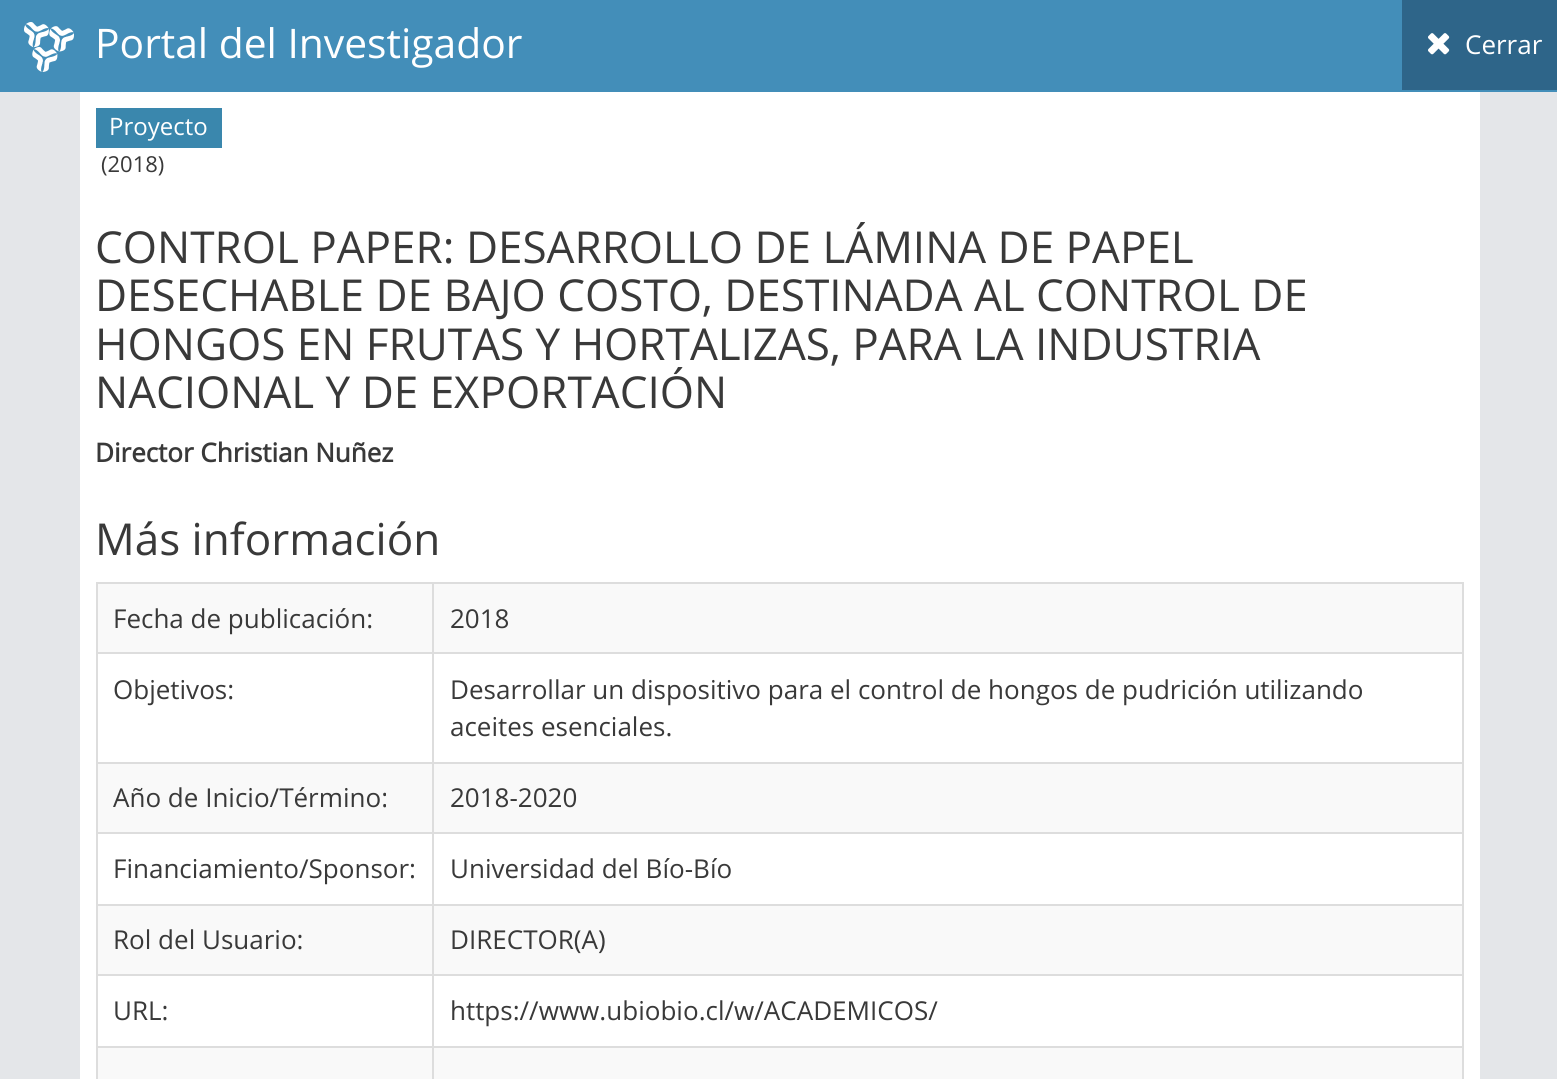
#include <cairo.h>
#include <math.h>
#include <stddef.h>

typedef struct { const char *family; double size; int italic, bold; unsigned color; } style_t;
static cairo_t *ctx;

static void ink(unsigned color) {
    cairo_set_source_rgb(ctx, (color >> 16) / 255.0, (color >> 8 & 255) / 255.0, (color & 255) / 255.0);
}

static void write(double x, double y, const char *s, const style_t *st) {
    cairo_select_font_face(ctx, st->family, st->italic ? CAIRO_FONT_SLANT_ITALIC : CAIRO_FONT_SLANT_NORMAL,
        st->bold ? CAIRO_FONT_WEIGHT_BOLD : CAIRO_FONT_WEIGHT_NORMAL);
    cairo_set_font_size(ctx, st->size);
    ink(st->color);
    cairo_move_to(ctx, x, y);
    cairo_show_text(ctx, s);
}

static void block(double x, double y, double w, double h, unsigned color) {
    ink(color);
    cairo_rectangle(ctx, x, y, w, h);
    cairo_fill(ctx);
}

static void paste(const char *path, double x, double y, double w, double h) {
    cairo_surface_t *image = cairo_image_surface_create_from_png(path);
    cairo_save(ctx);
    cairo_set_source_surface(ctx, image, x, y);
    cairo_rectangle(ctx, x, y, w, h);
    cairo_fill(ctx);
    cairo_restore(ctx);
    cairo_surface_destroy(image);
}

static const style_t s1 = {"Open Sans", 40.75, 0, 0, 0xffffff};
static const style_t s2 = {"Open Sans", 26, 0, 0, 0xffffff};
static const style_t s3 = {"Open Sans", 24, 0, 0, 0xffffff};
static const style_t s4 = {"Open Sans", 22, 0, 0, 0x393939};
static const style_t s5 = {"Open Sans", 44, 0, 0, 0x393939};
static const style_t s6 = {"Open Sans", 26, 0, 1, 0x393939};
static const style_t s7 = {"Open Sans", 26, 0, 0, 0x393939};

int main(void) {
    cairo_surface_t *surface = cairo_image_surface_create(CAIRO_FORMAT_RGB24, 1557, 1079);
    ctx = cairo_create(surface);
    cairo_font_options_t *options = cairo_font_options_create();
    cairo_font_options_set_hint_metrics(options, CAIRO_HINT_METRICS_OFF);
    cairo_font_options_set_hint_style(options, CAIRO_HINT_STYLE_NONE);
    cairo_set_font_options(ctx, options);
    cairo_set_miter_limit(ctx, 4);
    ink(0xe4e6e9);
    cairo_paint(ctx);
    block(0, 0, 1557, 92, 0x438eb9);
    paste("pic1.png", 24, 22, 50, 50);
    write(95, 58, "Portal del Investigador", &s1);
    block(1402, 0, 155, 90, 0x2e6589);
    paste("pic2.png", 1428, 33, 22, 22);
    write(1465, 54, "Cerrar", &s2);
    block(80, 92, 1400, 987, 0xffffff);
    block(96, 108, 126, 40, 0x3a87ad);
    write(109, 135, "Proyecto", &s3);
    write(101, 172, "(2018)", &s4);
    write(95, 263, "CONTROL PAPER: DESARROLLO DE LÁMINA DE PAPEL", &s5);
    write(95, 311, "DESECHABLE DE BAJO COSTO, DESTINADA AL CONTROL DE", &s5);
    write(95, 360, "HONGOS EN FRUTAS Y HORTALIZAS, PARA LA INDUSTRIA", &s5);
    write(95, 408, "NACIONAL Y DE EXPORTACIÓN", &s5);
    write(95, 462, "Director Christian Nuñez", &s6);
    write(95, 555, "Más información", &s5);
    block(96, 582, 1368, 2, 0xdddddd);
    block(1462, 582, 2, 497, 0xdddddd);
    block(96, 582, 2, 497, 0xdddddd);
    block(98, 584, 1364, 68, 0xf9f9f9);
    write(113, 628, "Fecha de publicación:", &s7);
    block(432, 652, 1032, 2, 0xdddddd);
    block(432, 762, 1032, 2, 0xdddddd);
    block(98, 764, 1364, 68, 0xf9f9f9);
    block(432, 832, 1032, 2, 0xdddddd);
    block(432, 904, 1032, 2, 0xdddddd);
    block(98, 906, 1364, 68, 0xf9f9f9);
    block(432, 974, 1032, 2, 0xdddddd);
    block(432, 1046, 1032, 2, 0xdddddd);
    block(98, 1048, 1364, 31, 0xf9f9f9);
    block(432, 1046, 2, 33, 0xdddddd);
    block(96, 1046, 338, 2, 0xdddddd);
    block(432, 974, 2, 74, 0xdddddd);
    block(96, 974, 338, 2, 0xdddddd);
    block(432, 904, 2, 72, 0xdddddd);
    block(96, 904, 338, 2, 0xdddddd);
    block(432, 832, 2, 74, 0xdddddd);
    block(96, 832, 338, 2, 0xdddddd);
    block(432, 762, 2, 72, 0xdddddd);
    block(96, 762, 338, 2, 0xdddddd);
    block(432, 652, 2, 112, 0xdddddd);
    block(96, 652, 338, 2, 0xdddddd);
    block(432, 582, 2, 72, 0xdddddd);
    write(450, 628, "2018", &s7);
    write(113, 699, "Objetivos:", &s7);
    write(450, 699, "Desarrollar un dispositivo para el control de hongos de pudrición utilizando", &s7);
    write(450, 736, "aceites esenciales.", &s7);
    write(113, 807, "Año de Inicio/Término:", &s7);
    write(450, 807, "2018-2020", &s7);
    write(113, 878, "Financiamiento/Sponsor:", &s7);
    write(450, 878, "Universidad del Bío-Bío", &s7);
    write(113, 949, "Rol del Usuario:", &s7);
    write(450, 949, "DIRECTOR(A)", &s7);
    write(113, 1020, "URL:", &s7);
    write(450, 1020, "https://www.ubiobio.cl/w/ACADEMICOS/", &s7);
    cairo_surface_write_to_png(surface, "screenshot.png");
    cairo_font_options_destroy(options);
    cairo_destroy(ctx);
    cairo_surface_destroy(surface);
    return 0;
}
